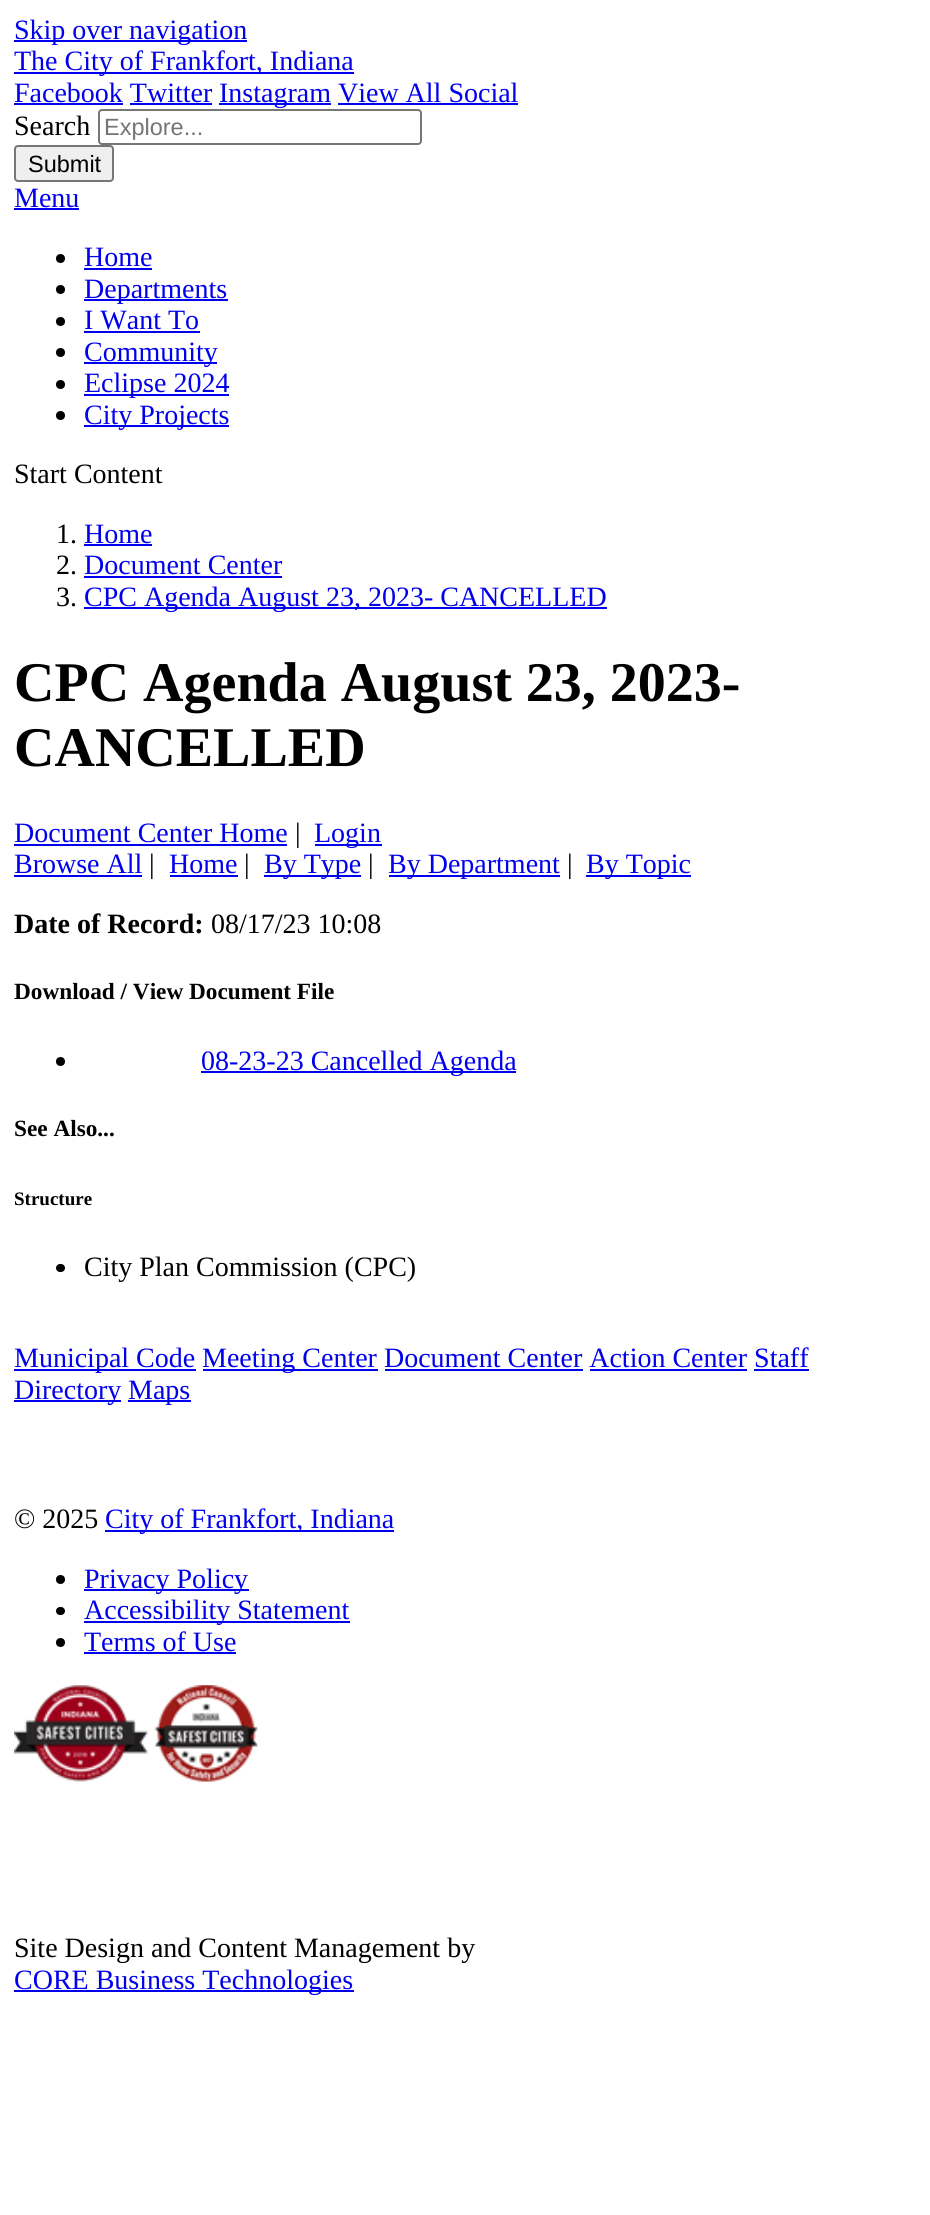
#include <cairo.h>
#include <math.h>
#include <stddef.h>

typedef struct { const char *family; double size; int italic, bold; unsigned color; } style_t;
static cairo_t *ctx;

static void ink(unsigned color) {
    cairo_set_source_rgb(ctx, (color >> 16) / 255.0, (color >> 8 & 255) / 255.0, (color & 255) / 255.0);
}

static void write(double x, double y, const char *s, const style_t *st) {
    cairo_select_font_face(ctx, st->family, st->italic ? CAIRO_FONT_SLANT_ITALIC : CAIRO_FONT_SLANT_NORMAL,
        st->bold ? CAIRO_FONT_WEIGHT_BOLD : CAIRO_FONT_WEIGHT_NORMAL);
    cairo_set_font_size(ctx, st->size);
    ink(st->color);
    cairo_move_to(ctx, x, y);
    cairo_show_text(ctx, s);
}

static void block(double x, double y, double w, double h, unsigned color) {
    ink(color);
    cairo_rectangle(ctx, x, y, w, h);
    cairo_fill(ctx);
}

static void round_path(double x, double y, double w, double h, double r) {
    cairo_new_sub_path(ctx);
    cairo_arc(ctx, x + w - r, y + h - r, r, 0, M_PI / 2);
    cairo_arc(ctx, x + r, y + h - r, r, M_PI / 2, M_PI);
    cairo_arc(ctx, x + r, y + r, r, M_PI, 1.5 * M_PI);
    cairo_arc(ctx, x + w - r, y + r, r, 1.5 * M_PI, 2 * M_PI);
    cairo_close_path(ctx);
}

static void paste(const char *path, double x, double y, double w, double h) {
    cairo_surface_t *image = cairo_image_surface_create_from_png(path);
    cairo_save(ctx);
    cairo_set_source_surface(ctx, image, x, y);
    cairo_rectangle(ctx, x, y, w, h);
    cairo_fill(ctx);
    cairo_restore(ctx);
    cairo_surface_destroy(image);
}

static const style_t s1 = {"Liberation Serif", 28, 0, 0, 0x0000ee};
static const style_t s2 = {"Liberation Serif", 28, 0, 0, 0x000000};
static const style_t s3 = {"Liberation Sans", 23.5, 0, 0, 0x757575};
static const style_t s4 = {"Liberation Sans", 23.5, 0, 0, 0x000000};
static const style_t s5 = {"Liberation Serif", 56, 0, 1, 0x000000};
static const style_t s6 = {"Liberation Serif", 28, 0, 1, 0x000000};
static const style_t s7 = {"Liberation Serif", 23.25, 0, 1, 0x000000};
static const style_t s8 = {"Liberation Serif", 19, 0, 1, 0x000000};

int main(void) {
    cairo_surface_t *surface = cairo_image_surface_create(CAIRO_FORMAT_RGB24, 930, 2215);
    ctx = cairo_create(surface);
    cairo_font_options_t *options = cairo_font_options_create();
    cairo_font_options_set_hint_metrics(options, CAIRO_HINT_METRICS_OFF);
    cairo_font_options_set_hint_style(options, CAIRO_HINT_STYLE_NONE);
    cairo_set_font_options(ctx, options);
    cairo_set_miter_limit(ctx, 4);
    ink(0xffffff);
    cairo_paint(ctx);
    block(14, 40, 233, 2, 0x0000ee);
    write(14, 39, "Skip over navigation", &s1);
    block(14, 72, 340, 2, 0x0000ee);
    write(14, 70, "The City of Frankfort, Indiana", &s1);
    write(14, 102, "Facebook Twitter", &s1);
    block(14, 103, 109, 2, 0x0000ee);
    block(219, 103, 112, 2, 0x0000ee);
    write(219, 102, "Instagram View All Social", &s1);
    block(130, 103, 82, 2, 0x0000ee);
    block(338, 103, 180, 2, 0x0000ee);
    write(14, 135, "Search", &s2);
    round_path(99, 110, 322, 34, 3);
    ink(0x767676);
    cairo_stroke(ctx);
    write(104, 135, "Explore...", &s3);
    ink(0xefefef);
    round_path(15, 146, 98, 35, 3);
    cairo_fill_preserve(ctx);
    ink(0x767676);
    cairo_stroke(ctx);
    write(28, 172, "Submit", &s4);
    write(14, 207, "Menu", &s1);
    block(14, 208, 65, 2, 0x0000ee);
    ink(0x000000);
    cairo_new_path(ctx);
    cairo_arc(ctx, 60.5, 258.5, 4.5, 0, 2 * M_PI);
    cairo_fill(ctx);
    write(84, 266, "Home", &s1);
    block(84, 268, 68, 2, 0x0000ee);
    ink(0x000000);
    cairo_new_path(ctx);
    cairo_arc(ctx, 60.5, 289.5, 4.5, 0, 2 * M_PI);
    cairo_fill(ctx);
    block(84, 299, 144, 2, 0x0000ee);
    write(84, 298, "Departments", &s1);
    ink(0x000000);
    cairo_new_path(ctx);
    cairo_arc(ctx, 60.5, 321.5, 4.5, 0, 2 * M_PI);
    cairo_fill(ctx);
    write(84, 329, "I Want To", &s1);
    block(84, 331, 116, 2, 0x0000ee);
    ink(0x000000);
    cairo_new_path(ctx);
    cairo_arc(ctx, 60.5, 352.5, 4.5, 0, 2 * M_PI);
    cairo_fill(ctx);
    block(84, 362, 133, 2, 0x0000ee);
    write(84, 361, "Community", &s1);
    ink(0x000000);
    cairo_new_path(ctx);
    cairo_arc(ctx, 60.5, 384.5, 4.5, 0, 2 * M_PI);
    cairo_fill(ctx);
    block(84, 394, 145, 2, 0x0000ee);
    write(84, 392, "Eclipse 2024", &s1);
    ink(0x000000);
    cairo_new_path(ctx);
    cairo_arc(ctx, 60.5, 415.5, 4.5, 0, 2 * M_PI);
    cairo_fill(ctx);
    block(84, 425, 145, 2, 0x0000ee);
    write(84, 424, "City Projects", &s1);
    write(14, 483, "Start Content", &s2);
    write(56, 543, "1.", &s2);
    write(84, 543, "Home", &s1);
    block(84, 544, 68, 2, 0x0000ee);
    write(56, 574, "2.", &s2);
    write(84, 574, "Document Center", &s1);
    block(84, 576, 198, 2, 0x0000ee);
    write(56, 606, "3.", &s2);
    block(84, 607, 523, 2, 0x0000ee);
    write(84, 606, "CPC Agenda August 23, 2023- CANCELLED", &s1);
    write(14, 701, "CPC Agenda August 23, 2023-", &s5);
    write(14, 766, "CANCELLED", &s5);
    write(14, 842, "Document Center Home", &s1);
    block(14, 844, 273, 2, 0x0000ee);
    write(295, 842, "|", &s2);
    block(315, 844, 67, 2, 0x0000ee);
    write(314, 842, "Login", &s1);
    write(14, 873, "Browse All", &s1);
    block(14, 875, 128, 2, 0x0000ee);
    write(149, 873, "|", &s2);
    write(169, 873, "Home", &s1);
    block(170, 875, 68, 2, 0x0000ee);
    write(244, 873, "|", &s2);
    block(264, 875, 97, 2, 0x0000ee);
    write(264, 873, "By Type", &s1);
    write(368, 873, "|", &s2);
    block(389, 875, 171, 2, 0x0000ee);
    write(388, 873, "By Department", &s1);
    write(567, 873, "|", &s2);
    block(586, 875, 105, 2, 0x0000ee);
    write(586, 873, "By Topic", &s1);
    write(14, 933, "Date of Record:", &s6);
    write(211, 933, "08/17/23 10:08", &s2);
    write(14, 999, "Download / View Document File", &s7);
    cairo_new_path(ctx);
    cairo_arc(ctx, 60.5, 1061.5, 4.5, 0, 2 * M_PI);
    cairo_fill(ctx);
    block(201, 1071, 315, 2, 0x0000ee);
    write(201, 1070, "08-23-23 Cancelled Agenda", &s1);
    write(14, 1136, "See Also...", &s7);
    write(14, 1205, "Structure", &s8);
    round_path(56, 1264, 9, 8, 4);
    cairo_fill(ctx);
    write(84, 1276, "City Plan Commission (CPC)", &s2);
    block(14, 1369, 182, 2, 0x0000ee);
    write(14, 1367, "Municipal Code", &s1);
    block(203, 1369, 175, 2, 0x0000ee);
    write(202, 1367, "Meeting Center Document Center Action Center Staff", &s1);
    block(385, 1369, 198, 2, 0x0000ee);
    block(590, 1369, 157, 2, 0x0000ee);
    block(14, 1400, 107, 2, 0x0000ee);
    write(14, 1399, "Directory", &s1);
    block(754, 1369, 55, 2, 0x0000ee);
    block(128, 1400, 63, 2, 0x0000ee);
    write(128, 1399, "Maps", &s1);
    write(14, 1528, "© 2025", &s2);
    block(105, 1530, 289, 2, 0x0000ee);
    write(105, 1528, "City of Frankfort, Indiana", &s1);
    ink(0x000000);
    cairo_new_path(ctx);
    cairo_arc(ctx, 60.5, 1579.5, 4.5, 0, 2 * M_PI);
    cairo_fill(ctx);
    block(84, 1589, 165, 2, 0x0000ee);
    write(84, 1588, "Privacy Policy", &s1);
    ink(0x000000);
    round_path(56, 1607, 9, 8, 4);
    cairo_fill(ctx);
    block(84, 1621, 266, 2, 0x0000ee);
    write(84, 1619, "Accessibility Statement", &s1);
    ink(0x000000);
    cairo_new_path(ctx);
    cairo_arc(ctx, 60.5, 1642.5, 4.5, 0, 2 * M_PI);
    cairo_fill(ctx);
    write(84, 1651, "Terms of Use", &s1);
    block(84, 1652, 152, 2, 0x0000ee);
    paste("pic1.png", 14, 1685, 244, 97);
    write(14, 1957, "Site Design and Content Management by", &s2);
    block(14, 1990, 340, 2, 0x0000ee);
    write(14, 1989, "CORE Business Technologies", &s1);
    cairo_surface_write_to_png(surface, "screenshot.png");
    cairo_font_options_destroy(options);
    cairo_destroy(ctx);
    cairo_surface_destroy(surface);
    return 0;
}
